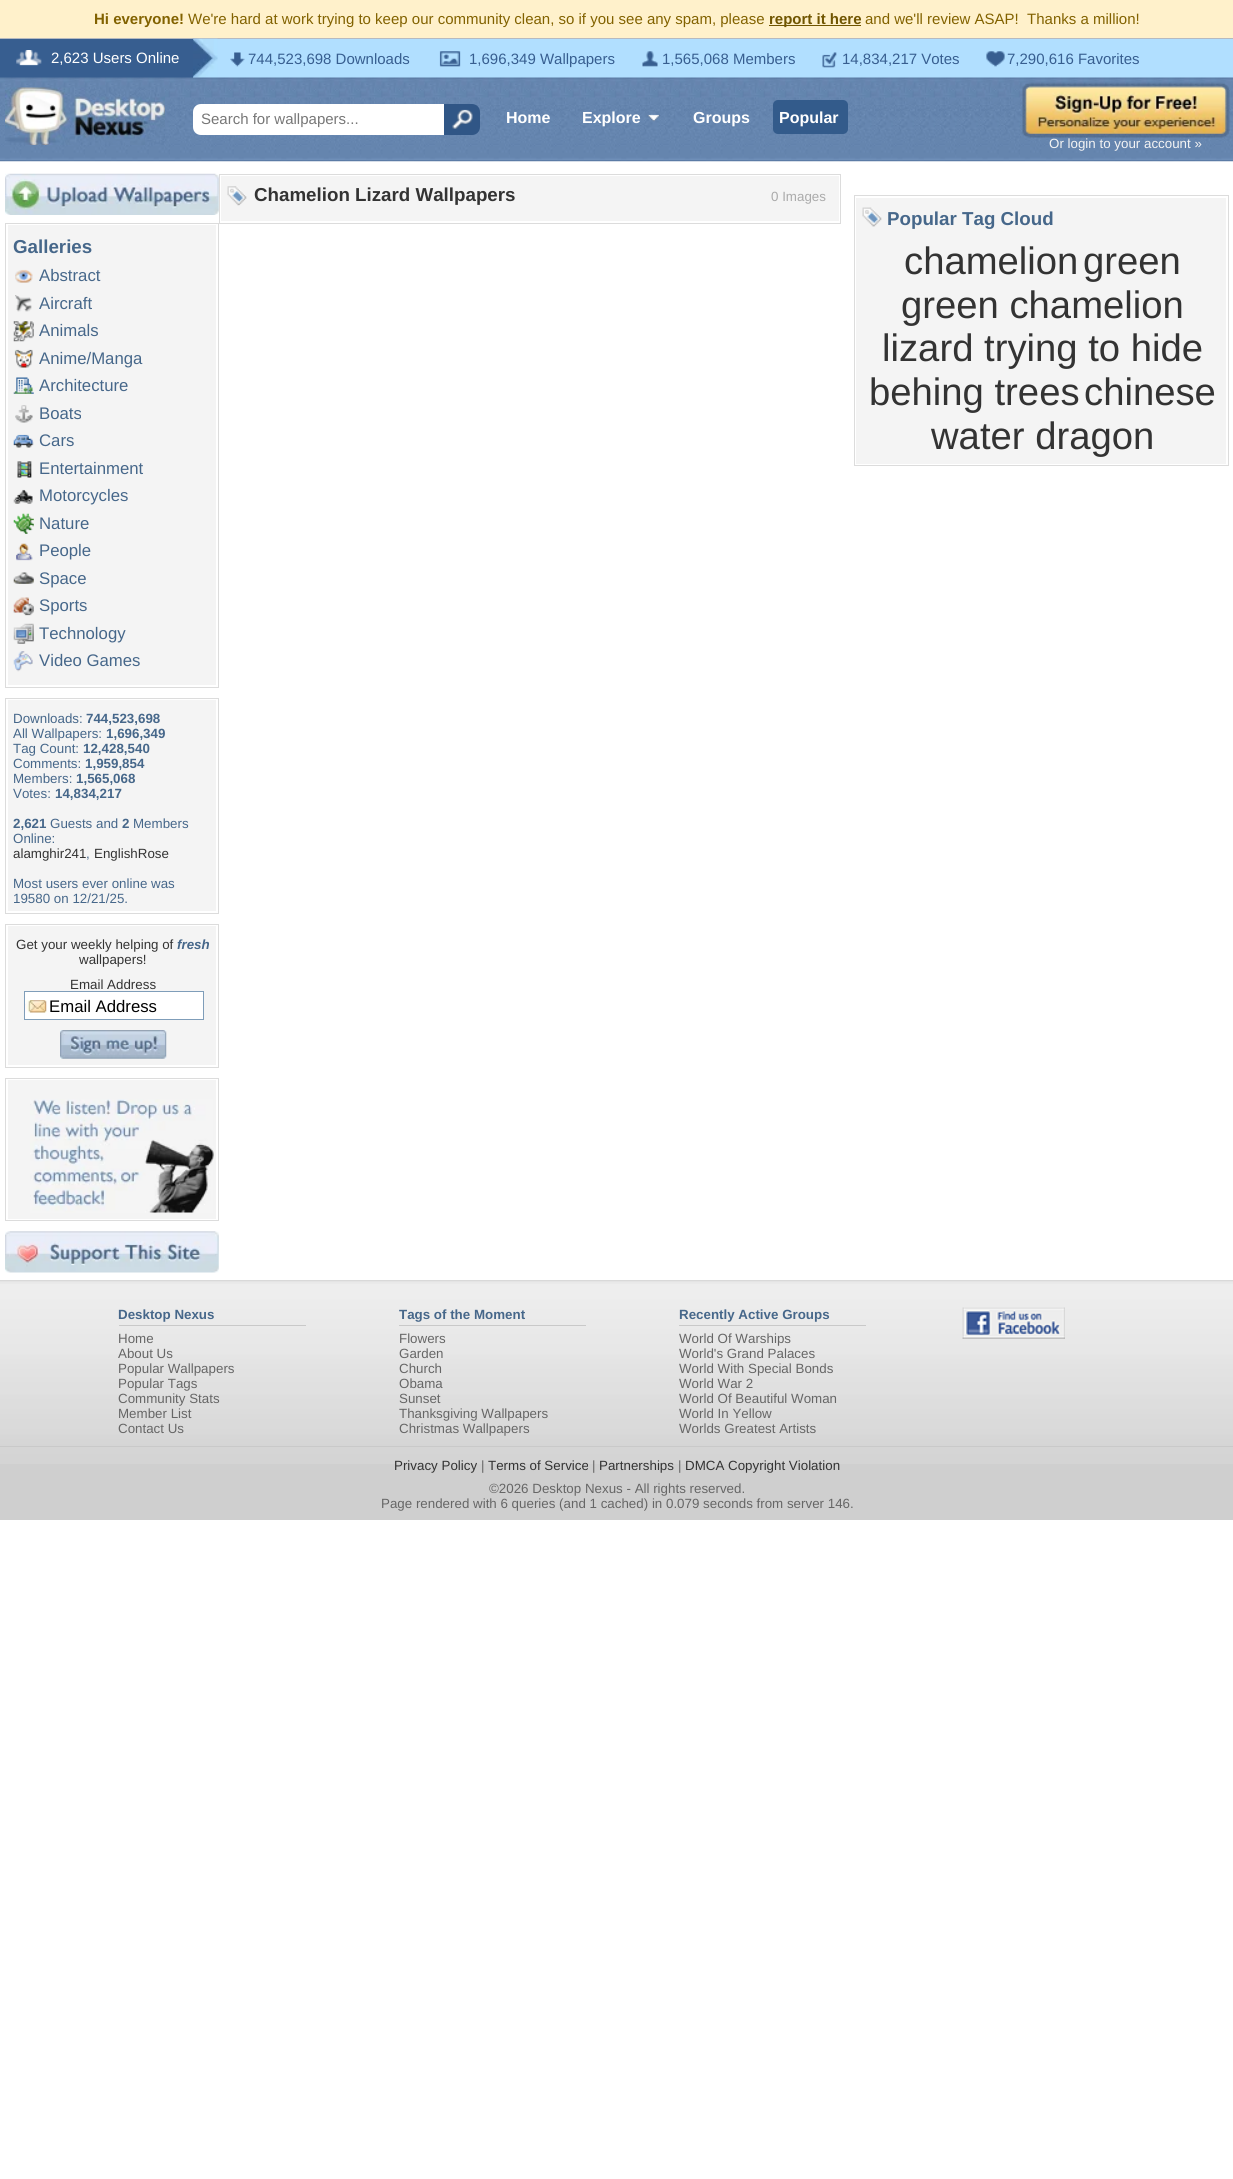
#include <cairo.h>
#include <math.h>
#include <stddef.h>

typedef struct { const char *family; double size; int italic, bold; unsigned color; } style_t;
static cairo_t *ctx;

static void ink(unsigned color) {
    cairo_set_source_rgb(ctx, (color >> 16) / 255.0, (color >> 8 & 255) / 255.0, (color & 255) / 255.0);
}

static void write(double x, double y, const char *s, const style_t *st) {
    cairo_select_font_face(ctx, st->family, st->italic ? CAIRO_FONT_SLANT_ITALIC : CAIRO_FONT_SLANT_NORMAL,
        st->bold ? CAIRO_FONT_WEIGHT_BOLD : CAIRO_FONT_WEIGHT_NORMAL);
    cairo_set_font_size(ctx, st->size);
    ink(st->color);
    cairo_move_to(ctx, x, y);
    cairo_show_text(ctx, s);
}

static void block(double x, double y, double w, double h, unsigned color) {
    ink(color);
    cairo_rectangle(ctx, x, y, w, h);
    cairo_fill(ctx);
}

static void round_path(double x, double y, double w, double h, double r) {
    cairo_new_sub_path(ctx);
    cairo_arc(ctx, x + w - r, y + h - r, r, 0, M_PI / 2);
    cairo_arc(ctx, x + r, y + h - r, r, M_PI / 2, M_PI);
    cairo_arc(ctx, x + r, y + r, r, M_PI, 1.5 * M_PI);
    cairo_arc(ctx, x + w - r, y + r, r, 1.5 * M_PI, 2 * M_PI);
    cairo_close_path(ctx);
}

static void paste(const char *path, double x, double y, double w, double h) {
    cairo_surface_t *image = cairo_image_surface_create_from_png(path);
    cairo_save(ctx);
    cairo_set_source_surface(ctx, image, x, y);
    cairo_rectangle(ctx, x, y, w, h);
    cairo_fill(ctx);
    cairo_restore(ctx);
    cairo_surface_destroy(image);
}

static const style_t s1 = {"Liberation Sans", 15, 0, 1, 0x826200};
static const style_t s2 = {"Liberation Sans", 15, 0, 0, 0x826200};
static const style_t s3 = {"Liberation Sans", 15, 0, 1, 0x705500};
static const style_t s4 = {"Liberation Sans", 15, 0, 0, 0xffffff};
static const style_t s5 = {"Liberation Sans", 15, 0, 0, 0x375e90};
static const style_t s6 = {"Liberation Sans", 15, 0, 0, 0x777777};
static const style_t s7 = {"Liberation Sans", 16, 0, 1, 0xffffff};
static const style_t s8 = {"Liberation Sans", 13.35, 0, 0, 0xf4f4f4};
static const style_t s9 = {"Liberation Sans", 18.75, 0, 1, 0x333333};
static const style_t s10 = {"Liberation Sans", 13.35, 0, 0, 0xaaaaaa};
static const style_t s11 = {"Liberation Sans", 18.75, 0, 1, 0x46678a};
static const style_t s12 = {"Liberation Sans", 16.75, 0, 0, 0x46678a};
static const style_t s13 = {"Liberation Sans", 13.35, 0, 0, 0x46678a};
static const style_t s14 = {"Liberation Sans", 13.35, 0, 1, 0x46678a};
static const style_t s15 = {"Liberation Sans", 13.35, 0, 0, 0x333333};
static const style_t s16 = {"Liberation Sans", 13.35, 1, 1, 0x46678a};
static const style_t s17 = {"Liberation Sans", 16.75, 0, 0, 0x000000};
static const style_t s18 = {"Liberation Sans", 38.25, 0, 0, 0x333333};
static const style_t s19 = {"Liberation Sans", 13.35, 0, 0, 0x666666};

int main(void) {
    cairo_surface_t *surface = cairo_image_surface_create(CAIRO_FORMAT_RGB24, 1233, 2179);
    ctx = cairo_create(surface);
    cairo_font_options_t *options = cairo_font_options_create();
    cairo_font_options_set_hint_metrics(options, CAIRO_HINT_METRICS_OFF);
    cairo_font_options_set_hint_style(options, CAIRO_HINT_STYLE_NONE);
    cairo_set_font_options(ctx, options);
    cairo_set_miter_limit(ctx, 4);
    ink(0xffffff);
    cairo_paint(ctx);
    block(0, 0, 1233, 38, 0xfff1cb);
    write(94, 24, "Hi everyone!", &s1);
    write(188, 24, "We're hard at work trying to keep our community clean, so if you see any spam, please", &s2);
    block(769, 25, 92, 1, 0x705500);
    write(769, 24, "report it here", &s3);
    write(865, 24, "and we'll review ASAP!  Thanks a million!", &s2);
    block(193, 39, 1040, 39, 0xb1dfff);
    block(0, 38, 1233, 1, 0xb6bac0);
    paste("pic2.png", 192, 38, 26, 40);
    block(0, 39, 193, 39, 0x375e90);
    paste("pic1.png", 16, 50, 26, 16);
    write(51, 63, "2,623 Users Online", &s4);
    paste("pic3.png", 230, 52, 15, 15);
    write(248, 64, "744,523,698 Downloads", &s5);
    paste("pic4.png", 439, 51, 22, 16);
    write(469, 64, "1,696,349 Wallpapers", &s5);
    paste("pic5.png", 642, 51, 16, 16);
    write(662, 64, "1,565,068 Members", &s5);
    paste("pic6.png", 822, 52, 15, 16);
    write(842, 64, "14,834,217 Votes", &s5);
    paste("pic7.png", 986, 51, 19, 16);
    write(1007, 64, "7,290,616 Favorites", &s5);
    paste("pic8.png", 0, 77, 1233, 85);
    paste("pic9.png", 5, 87, 160, 58);
    ink(0xffffff);
    cairo_new_path(ctx);
    cairo_move_to(ctx, 201, 104);
    cairo_line_to(ctx, 464, 104);
    cairo_line_to(ctx, 464, 135);
    cairo_line_to(ctx, 201, 135);
    cairo_curve_to(ctx, 196.5, 135, 193, 131.5, 193, 127);
    cairo_line_to(ctx, 193, 112);
    cairo_curve_to(ctx, 193, 107.5, 196.5, 104, 201, 104);
    cairo_close_path(ctx);
    cairo_fill(ctx);
    write(201, 124, "Search for wallpapers...", &s6);
    ink(0x305686);
    cairo_new_path(ctx);
    cairo_move_to(ctx, 444, 104);
    cairo_line_to(ctx, 472, 104);
    cairo_curve_to(ctx, 476.5, 104, 480, 107.5, 480, 112);
    cairo_line_to(ctx, 480, 127);
    cairo_curve_to(ctx, 480, 131.5, 476.5, 135, 472, 135);
    cairo_line_to(ctx, 444, 135);
    cairo_close_path(ctx);
    cairo_fill(ctx);
    paste("pic10.png", 452, 109, 21, 20);
    write(506, 123, "Home", &s7);
    write(582, 123, "Explore", &s7);
    paste("pic11.png", 647, 114, 13, 8);
    write(693, 123, "Groups", &s7);
    ink(0x335b8b);
    round_path(773, 100, 75, 34, 5);
    cairo_fill(ctx);
    write(779, 123, "Popular", &s7);
    paste("pic12.png", 1022, 82, 208, 56);
    write(1049, 148, "Or login to your account »", &s8);
    cairo_rectangle(ctx, 219.5, 174.5, 621, 49);
    ink(0xdcdcdc);
    cairo_set_line_width(ctx, 1);
    cairo_stroke(ctx);
    block(221, 176, 618, 45, 0xf4f4f4);
    paste("pic13.png", 227, 186, 20, 20);
    write(254, 201, "Chamelion Lizard Wallpapers", &s9);
    write(771, 201, "0 Images", &s10);
    paste("pic14.png", 5, 173, 214, 42);
    cairo_rectangle(ctx, 5.5, 223.5, 213, 464);
    ink(0xdcdcdc);
    cairo_stroke(ctx);
    block(8, 225, 208, 460, 0xf4f4f4);
    write(13, 253, "Galleries", &s11);
    paste("pic15.png", 15, 269, 18, 14);
    write(39, 281, "Abstract", &s12);
    paste("pic16.png", 15, 295, 17, 17);
    write(39, 309, "Aircraft", &s12);
    paste("pic17.png", 13, 321, 21, 21);
    write(39, 336, "Animals", &s12);
    paste("pic18.png", 14, 349, 19, 19);
    write(39, 364, "Anime/Manga", &s12);
    paste("pic19.png", 13, 377, 21, 17);
    write(39, 391, "Architecture", &s12);
    paste("pic20.png", 15, 405, 18, 18);
    write(39, 419, "Boats", &s12);
    paste("pic21.png", 13, 434, 21, 14);
    write(39, 446, "Cars", &s12);
    paste("pic22.png", 17, 461, 15, 17);
    write(39, 474, "Entertainment", &s12);
    paste("pic23.png", 13, 489, 21, 15);
    write(39, 501, "Motorcycles", &s12);
    paste("pic24.png", 13, 513, 21, 21);
    write(39, 529, "Nature", &s12);
    paste("pic25.png", 16, 543, 17, 18);
    write(39, 556, "People", &s12);
    paste("pic26.png", 13, 572, 21, 12);
    write(39, 584, "Space", &s12);
    paste("pic27.png", 13, 597, 21, 19);
    write(39, 611, "Sports", &s12);
    paste("pic28.png", 13, 623, 21, 21);
    write(39, 639, "Technology", &s12);
    paste("pic29.png", 13, 651, 20, 21);
    write(39, 666, "Video Games", &s12);
    cairo_rectangle(ctx, 5.5, 698.5, 213, 215);
    ink(0xdcdcdc);
    cairo_stroke(ctx);
    block(8, 700, 208, 211, 0xf4f4f4);
    write(13, 723, "Downloads:", &s13);
    write(86, 723, "744,523,698", &s14);
    write(13, 738, "All Wallpapers:", &s13);
    write(106, 738, "1,696,349", &s14);
    write(13, 753, "Tag Count:", &s13);
    write(83, 753, "12,428,540", &s14);
    write(13, 768, "Comments:", &s13);
    write(85, 768, "1,959,854", &s14);
    write(13, 783, "Members:", &s13);
    write(76, 783, "1,565,068", &s14);
    write(13, 798, "Votes:", &s13);
    write(55, 798, "14,834,217", &s14);
    write(13, 828, "2,621", &s14);
    write(50, 828, "Guests and", &s13);
    write(122, 828, "2", &s14);
    write(133, 828, "Members", &s13);
    write(13, 843, "Online:", &s13);
    write(13, 858, "alamghir241", &s15);
    write(86, 858, ",", &s13);
    write(94, 858, "EnglishRose", &s15);
    write(13, 888, "Most users ever online was", &s13);
    write(13, 903, "19580 on 12/21/25.", &s13);
    cairo_rectangle(ctx, 5.5, 924.5, 213, 143);
    ink(0xdcdcdc);
    cairo_stroke(ctx);
    block(8, 926, 208, 139, 0xf4f4f4);
    write(16, 949, "Get your weekly helping of", &s15);
    write(177, 949, "fresh", &s16);
    write(79, 964, "wallpapers!", &s15);
    write(70, 989, "Email Address", &s15);
    block(25, 992, 178, 27, 0xffffff);
    paste("pic30.png", 25, 1000, 22, 13);
    cairo_rectangle(ctx, 24.5, 991.5, 179, 28);
    ink(0x7f9db9);
    cairo_stroke(ctx);
    write(49, 1012, "Email Address", &s17);
    paste("pic31.png", 60, 1030, 107, 29);
    cairo_rectangle(ctx, 5.5, 1078.5, 213, 142);
    ink(0xdcdcdc);
    cairo_stroke(ctx);
    block(8, 1080, 208, 139, 0xf4f4f4);
    paste("pic32.png", 30, 1099, 184, 114);
    paste("pic33.png", 5, 1231, 214, 42);
    cairo_rectangle(ctx, 854.5, 195.5, 374, 270);
    ink(0xdcdcdc);
    cairo_stroke(ctx);
    block(856, 198, 370, 266, 0xf4f4f4);
    paste("pic34.png", 862, 207, 20, 20);
    write(887, 225, "Popular Tag Cloud", &s11);
    write(904, 274, "chamelion", &s18);
    write(1083, 274, "green", &s18);
    write(901, 318, "green chamelion", &s18);
    write(882, 361, "lizard trying to hide", &s18);
    write(869, 405, "behing trees", &s18);
    write(1084, 405, "chinese", &s18);
    write(931, 449, "water dragon", &s18);
    block(0, 1464, 1233, 56, 0xcfcfcf);
    paste("pic35.png", 0, 1280, 1233, 184);
    write(118, 1319, "Desktop Nexus", &s14);
    block(119, 1325, 187, 1, 0xc9c9c9);
    write(118, 1343, "Home", &s19);
    write(118, 1358, "About Us", &s19);
    write(118, 1373, "Popular Wallpapers", &s19);
    write(118, 1388, "Popular Tags", &s19);
    write(118, 1403, "Community Stats", &s19);
    write(118, 1418, "Member List", &s19);
    write(118, 1433, "Contact Us", &s19);
    write(399, 1319, "Tags of the Moment", &s14);
    block(399, 1325, 187, 1, 0xc9c9c9);
    write(399, 1343, "Flowers", &s19);
    write(399, 1358, "Garden", &s19);
    write(399, 1373, "Church", &s19);
    write(399, 1388, "Obama", &s19);
    write(399, 1403, "Sunset", &s19);
    write(399, 1418, "Thanksgiving Wallpapers", &s19);
    write(399, 1433, "Christmas Wallpapers", &s19);
    write(679, 1319, "Recently Active Groups", &s14);
    block(679, 1325, 187, 1, 0xc9c9c9);
    write(679, 1343, "World Of Warships", &s19);
    write(679, 1358, "World's Grand Palaces", &s19);
    write(679, 1373, "World With Special Bonds", &s19);
    write(679, 1388, "World War 2", &s19);
    write(679, 1403, "World Of Beautiful Woman", &s19);
    write(679, 1418, "World In Yellow", &s19);
    write(679, 1433, "Worlds Greatest Artists", &s19);
    paste("pic36.png", 962, 1307, 103, 32);
    block(0, 1446, 1233, 1, 0xc9c9c9);
    write(394, 1470, "Privacy Policy", &s15);
    write(481, 1470, "|", &s19);
    write(488, 1470, "Terms of Service", &s15);
    write(592, 1470, "|", &s19);
    write(599, 1470, "Partnerships", &s15);
    write(678, 1470, "|", &s19);
    write(685, 1470, "DMCA Copyright Violation", &s15);
    write(489, 1493, "©2026 Desktop Nexus - All rights reserved.", &s19);
    write(381, 1508, "Page rendered with 6 queries (and 1 cached) in 0.079 seconds from server 146.", &s19);
    cairo_surface_write_to_png(surface, "screenshot.png");
    cairo_font_options_destroy(options);
    cairo_destroy(ctx);
    cairo_surface_destroy(surface);
    return 0;
}
